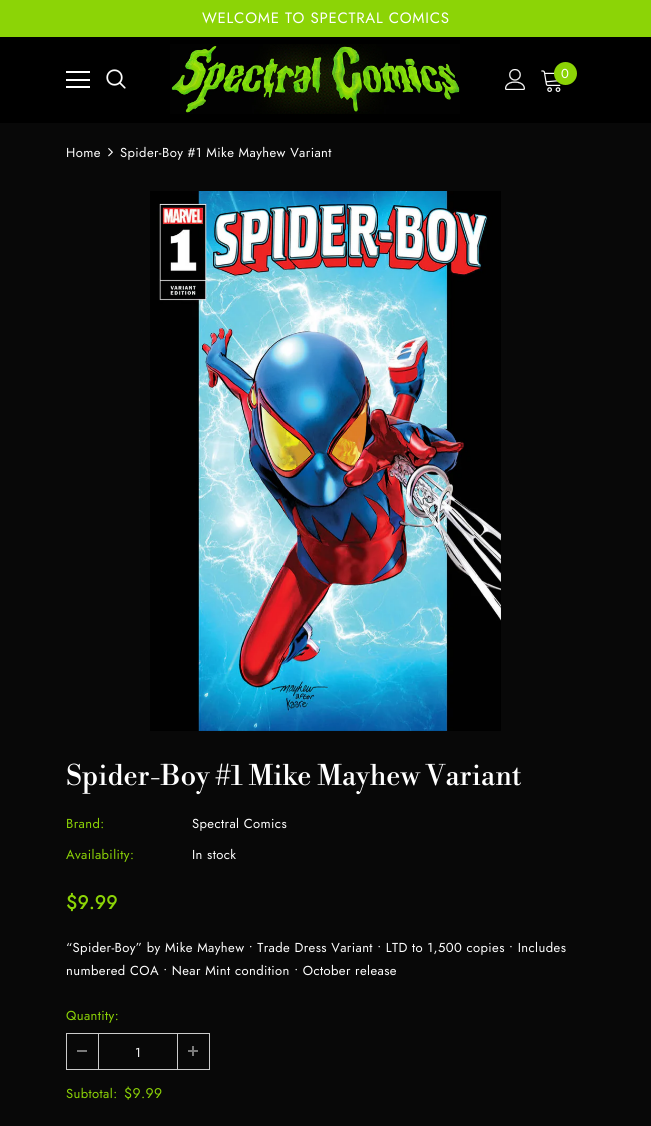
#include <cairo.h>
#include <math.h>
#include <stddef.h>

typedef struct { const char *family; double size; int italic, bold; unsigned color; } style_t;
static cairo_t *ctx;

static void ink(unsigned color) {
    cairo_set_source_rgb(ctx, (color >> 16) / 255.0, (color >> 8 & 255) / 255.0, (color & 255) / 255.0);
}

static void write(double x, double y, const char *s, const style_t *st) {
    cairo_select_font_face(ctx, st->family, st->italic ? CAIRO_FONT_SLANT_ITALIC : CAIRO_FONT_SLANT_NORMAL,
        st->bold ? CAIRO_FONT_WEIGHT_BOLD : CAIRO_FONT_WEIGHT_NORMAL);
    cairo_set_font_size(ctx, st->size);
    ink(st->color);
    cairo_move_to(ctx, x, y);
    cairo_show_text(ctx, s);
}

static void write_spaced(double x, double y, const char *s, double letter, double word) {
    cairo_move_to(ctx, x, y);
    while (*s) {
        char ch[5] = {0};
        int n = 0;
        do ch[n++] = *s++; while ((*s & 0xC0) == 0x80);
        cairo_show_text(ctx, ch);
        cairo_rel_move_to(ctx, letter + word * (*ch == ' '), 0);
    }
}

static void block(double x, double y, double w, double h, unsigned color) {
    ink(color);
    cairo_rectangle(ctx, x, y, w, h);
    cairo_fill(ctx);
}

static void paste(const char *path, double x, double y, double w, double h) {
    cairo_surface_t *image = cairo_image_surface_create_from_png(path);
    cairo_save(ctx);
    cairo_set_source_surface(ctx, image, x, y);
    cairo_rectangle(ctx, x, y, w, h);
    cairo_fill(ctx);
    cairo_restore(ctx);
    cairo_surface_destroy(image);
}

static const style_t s1 = {"Libre Bodoni", 28, 0, 0, 0xffffff};
static const style_t s2 = {"Jost", 13, 0, 0, 0xffffff};

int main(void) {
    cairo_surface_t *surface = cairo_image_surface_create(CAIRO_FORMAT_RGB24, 651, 1126);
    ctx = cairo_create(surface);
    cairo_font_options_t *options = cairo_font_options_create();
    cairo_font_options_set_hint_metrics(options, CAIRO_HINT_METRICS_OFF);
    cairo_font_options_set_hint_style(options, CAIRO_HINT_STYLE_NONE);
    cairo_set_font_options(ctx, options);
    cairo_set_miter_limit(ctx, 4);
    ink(0x080808);
    cairo_paint(ctx);
    block(0, 0, 651, 37, 0x8cd406);
    cairo_select_font_face(ctx, "Jost", CAIRO_FONT_SLANT_NORMAL, CAIRO_FONT_WEIGHT_NORMAL);
    cairo_set_font_size(ctx, 15);
    ink(0xffffff);
    write_spaced(202, 23, "WELCOME TO SPECTRAL COMICS", 0.75, 0);
    block(0, 37, 651, 86, 0x000000);
    block(66, 71, 24, 2, 0xffffff);
    block(66, 79, 24, 2, 0xffffff);
    block(66, 86, 24, 2, 0xffffff);
    paste("pic1.png", 106, 69, 20, 20);
    paste("pic2.png", 170, 44, 290, 70);
    paste("pic3.png", 505, 69, 20, 21);
    paste("pic4.png", 541, 70, 20, 22);
    ink(0x8cd406);
    cairo_arc(ctx, 565.5, 73.5, 11.5, 0, 2 * M_PI);
    cairo_fill(ctx);
    cairo_set_font_size(ctx, 13);
    ink(0xffffff);
    write_spaced(561, 78, "0", 0.4, 0);
    write_spaced(66, 157, "Home", 0.4, 0);
    paste("pic5.png", 108, 148, 5, 9);
    write_spaced(120, 157, "Spider-Boy #1 Mike Mayhew Variant", 0.4, 0);
    paste("pic6.png", 150, 191, 351, 540);
    write(66, 785, "Spider-Boy #1 Mike Mayhew Variant", &s1);
    cairo_select_font_face(ctx, "Jost", CAIRO_FONT_SLANT_NORMAL, CAIRO_FONT_WEIGHT_NORMAL);
    cairo_set_font_size(ctx, 13);
    ink(0x8cd406);
    write_spaced(66, 828, "Brand:", 0.4, 0);
    ink(0xffffff);
    write_spaced(192, 828, "Spectral Comics", 0.4, 0);
    ink(0x8cd406);
    write_spaced(66, 859, "Availability:", 0.4, 0);
    ink(0xffffff);
    write_spaced(192, 859, "In stock", 0.4, 0);
    cairo_select_font_face(ctx, "Jost", CAIRO_FONT_SLANT_NORMAL, CAIRO_FONT_WEIGHT_BOLD);
    cairo_set_font_size(ctx, 19);
    ink(0x8cd406);
    write_spaced(66, 909, "$9.99", 0.4, 0);
    cairo_select_font_face(ctx, "Jost", CAIRO_FONT_SLANT_NORMAL, CAIRO_FONT_WEIGHT_NORMAL);
    cairo_set_font_size(ctx, 13);
    ink(0xffffff);
    write_spaced(66, 952, "“Spider-Boy” by Mike Mayhew • Trade Dress Variant • LTD to 1,500 copies • Includes", 0.4, 0);
    write_spaced(66, 975, "numbered COA • Near Mint condition • October release", 0.4, 0);
    ink(0x8cd406);
    write_spaced(66, 1020, "Quantity:", 0.4, 0);
    cairo_rectangle(ctx, 66.5, 1033.5, 143, 36);
    ink(0xcbcbcb);
    cairo_set_line_width(ctx, 1);
    cairo_stroke(ctx);
    block(98, 1034, 1, 35, 0xcbcbcb);
    block(77, 1050, 10, 2, 0x7b7b7b);
    write(135, 1057, "1", &s2);
    block(177, 1034, 1, 35, 0xcbcbcb);
    block(188, 1050, 10, 2, 0x7b7b7b);
    block(192, 1046, 2, 10, 0x7b7b7b);
    ink(0x8cd406);
    write_spaced(66, 1098, "Subtotal:", 0.4, 0);
    cairo_set_font_size(ctx, 14);
    write_spaced(124, 1098, "$9.99", 0.4, 0);
    cairo_surface_write_to_png(surface, "screenshot.png");
    cairo_font_options_destroy(options);
    cairo_destroy(ctx);
    cairo_surface_destroy(surface);
    return 0;
}
